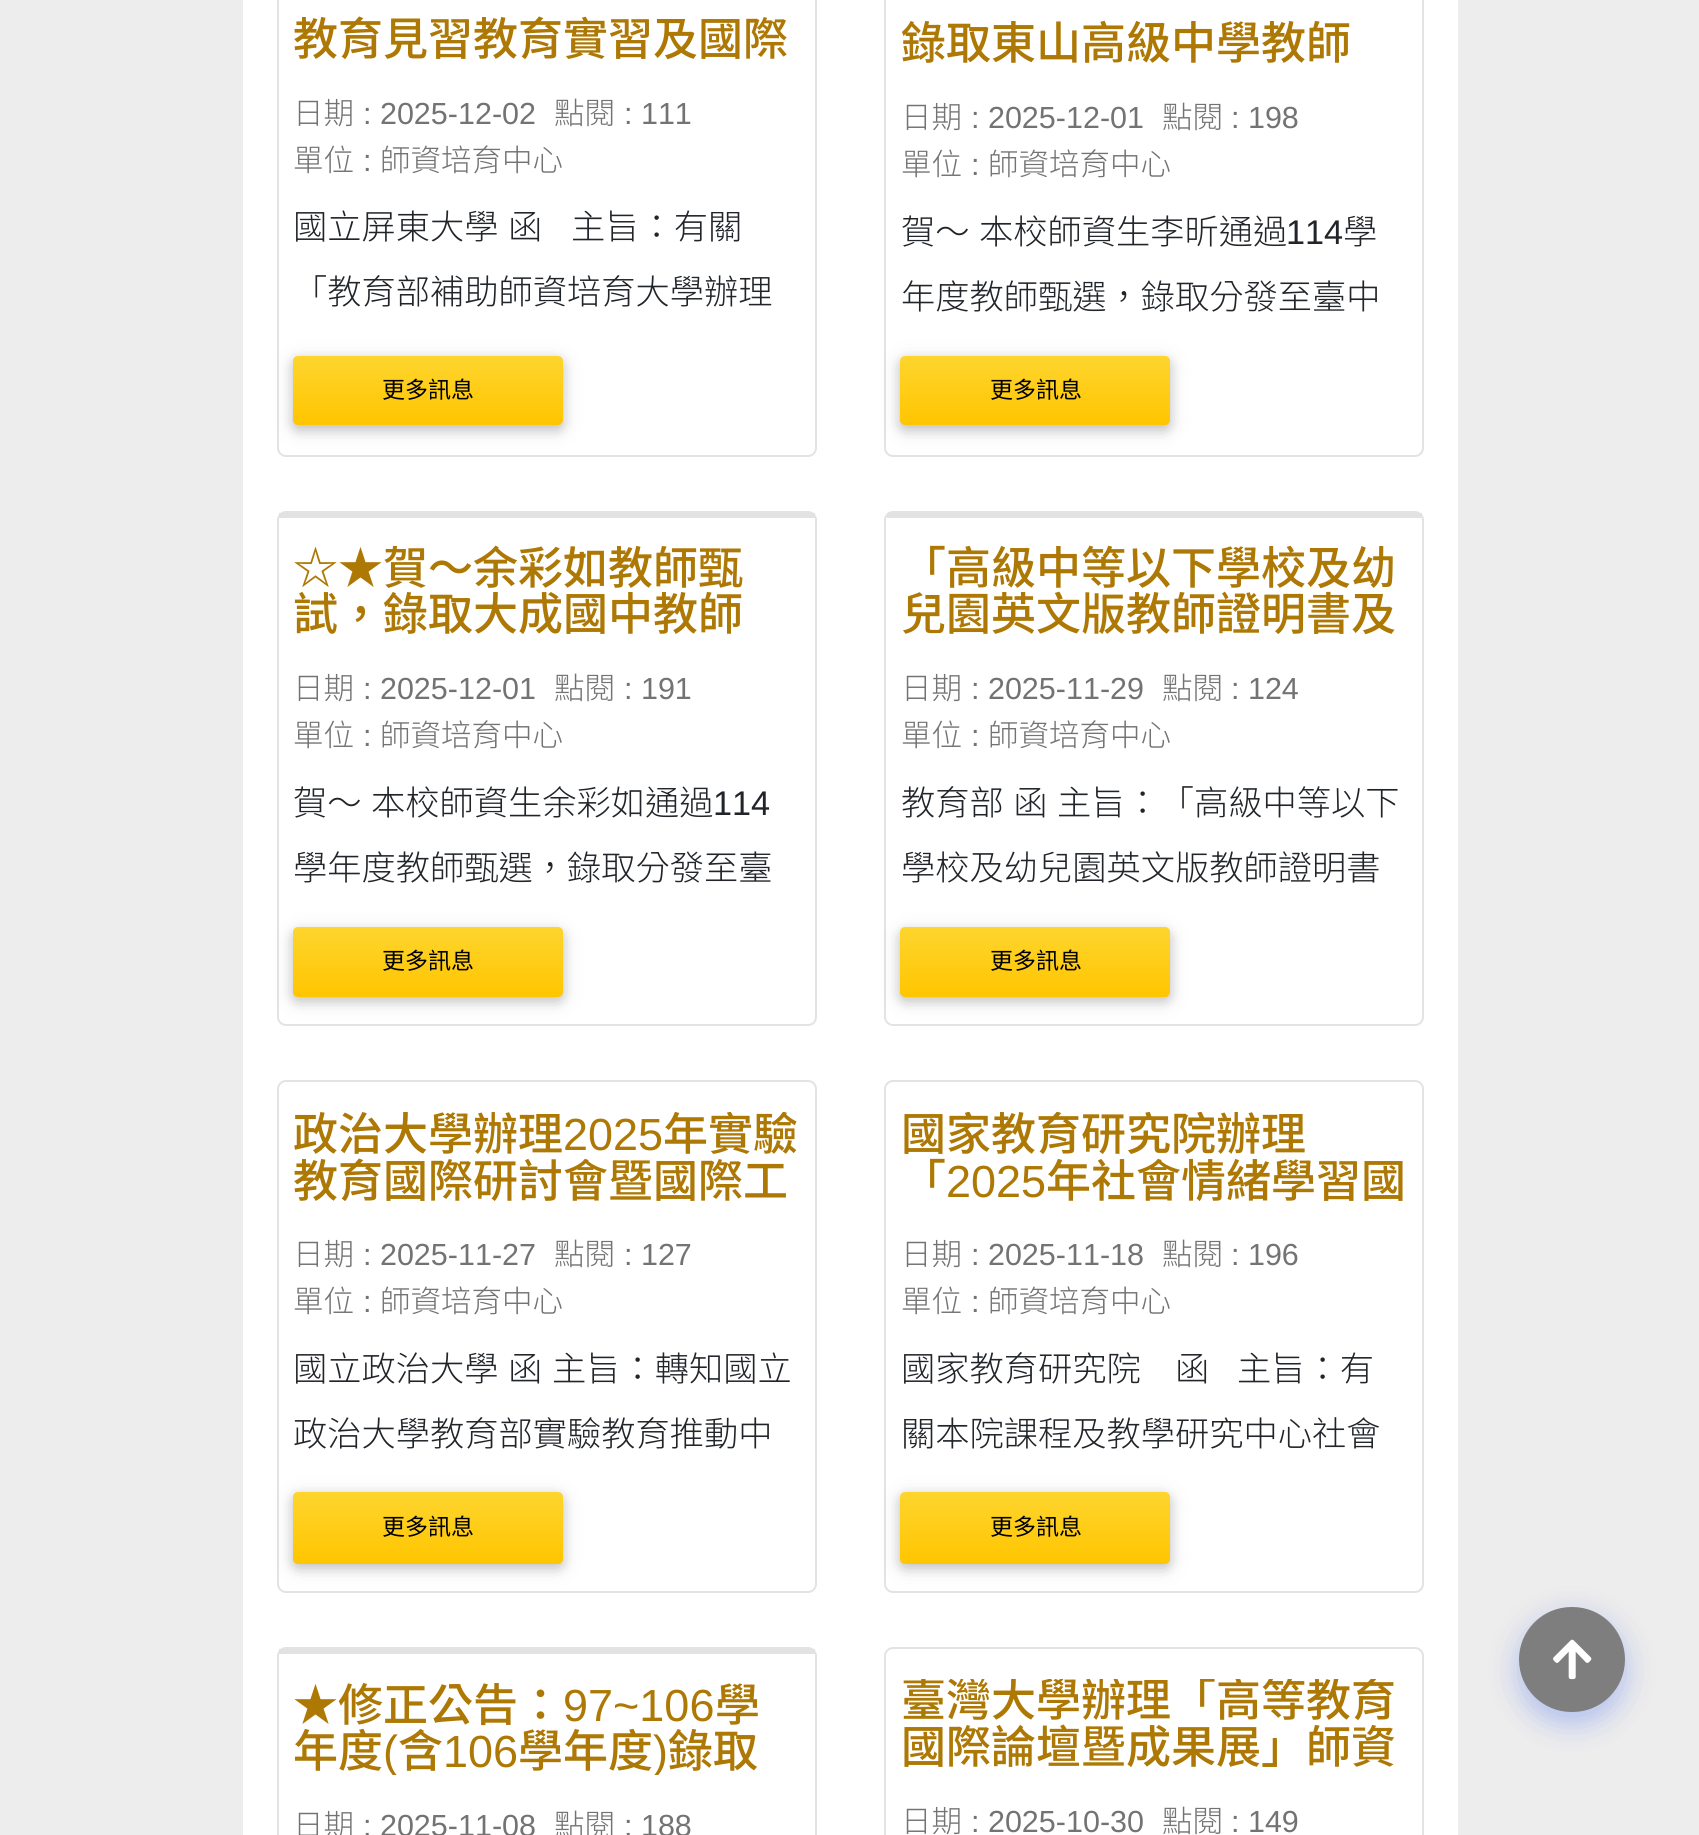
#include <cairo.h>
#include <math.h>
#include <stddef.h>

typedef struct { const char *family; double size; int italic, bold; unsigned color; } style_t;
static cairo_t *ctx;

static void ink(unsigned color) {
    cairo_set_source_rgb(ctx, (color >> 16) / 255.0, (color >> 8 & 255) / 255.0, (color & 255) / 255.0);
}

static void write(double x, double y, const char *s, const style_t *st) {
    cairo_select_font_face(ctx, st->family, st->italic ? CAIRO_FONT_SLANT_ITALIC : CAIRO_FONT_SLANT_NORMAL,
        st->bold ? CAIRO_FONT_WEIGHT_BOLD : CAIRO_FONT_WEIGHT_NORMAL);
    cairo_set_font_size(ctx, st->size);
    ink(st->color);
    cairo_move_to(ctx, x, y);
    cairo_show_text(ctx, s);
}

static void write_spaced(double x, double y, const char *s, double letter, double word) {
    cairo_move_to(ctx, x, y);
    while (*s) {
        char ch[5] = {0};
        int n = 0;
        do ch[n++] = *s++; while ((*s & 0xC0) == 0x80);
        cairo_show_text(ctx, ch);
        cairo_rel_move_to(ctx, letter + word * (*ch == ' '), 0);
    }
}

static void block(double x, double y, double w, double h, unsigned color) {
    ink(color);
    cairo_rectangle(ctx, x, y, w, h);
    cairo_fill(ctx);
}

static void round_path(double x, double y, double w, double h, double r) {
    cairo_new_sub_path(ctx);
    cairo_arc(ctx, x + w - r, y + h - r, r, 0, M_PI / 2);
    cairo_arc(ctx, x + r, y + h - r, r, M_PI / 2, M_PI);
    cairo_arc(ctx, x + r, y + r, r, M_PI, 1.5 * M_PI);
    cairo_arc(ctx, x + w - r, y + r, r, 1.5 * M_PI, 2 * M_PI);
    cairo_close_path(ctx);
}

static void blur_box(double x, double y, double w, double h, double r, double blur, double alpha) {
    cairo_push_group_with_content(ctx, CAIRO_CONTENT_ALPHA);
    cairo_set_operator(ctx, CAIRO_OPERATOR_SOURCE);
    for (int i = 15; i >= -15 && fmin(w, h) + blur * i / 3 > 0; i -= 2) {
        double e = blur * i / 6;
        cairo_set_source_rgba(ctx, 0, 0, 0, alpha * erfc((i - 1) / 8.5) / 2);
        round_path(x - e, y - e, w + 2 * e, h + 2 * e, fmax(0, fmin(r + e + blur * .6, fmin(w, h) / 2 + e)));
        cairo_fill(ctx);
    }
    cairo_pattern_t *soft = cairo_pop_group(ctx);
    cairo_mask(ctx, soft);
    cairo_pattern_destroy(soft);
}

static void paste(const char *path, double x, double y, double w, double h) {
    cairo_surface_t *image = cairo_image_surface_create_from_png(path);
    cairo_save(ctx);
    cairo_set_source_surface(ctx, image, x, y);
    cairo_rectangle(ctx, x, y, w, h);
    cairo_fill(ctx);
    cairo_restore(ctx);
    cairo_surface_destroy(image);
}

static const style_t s1 = {"Noto Sans TC Medium", 45, 0, 0, 0xae7805};
static const style_t s2 = {"Noto Sans TC Light", 30.5, 0, 0, 0x747373};
static const style_t s3 = {"Liberation Sans", 30.5, 0, 0, 0x747373};
static const style_t s4 = {"Noto Sans TC Light", 34.25, 0, 0, 0x212529};
static const style_t s5 = {"Noto Sans TC", 23, 0, 0, 0x000000};
static const style_t s6 = {"Liberation Sans", 34.25, 0, 0, 0x212529};
static const style_t s7 = {"Liberation Sans", 45, 0, 0, 0xae7805};

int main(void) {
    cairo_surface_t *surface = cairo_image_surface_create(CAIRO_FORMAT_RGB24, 1699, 1835);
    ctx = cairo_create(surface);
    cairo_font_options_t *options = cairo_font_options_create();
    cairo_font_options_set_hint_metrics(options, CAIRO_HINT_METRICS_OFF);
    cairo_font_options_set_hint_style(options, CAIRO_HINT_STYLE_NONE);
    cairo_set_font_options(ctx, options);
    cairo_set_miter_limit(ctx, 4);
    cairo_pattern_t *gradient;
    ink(0xededed);
    cairo_paint(ctx);
    block(243, 0, 1215, 1835, 0xffffff);
    round_path(278, -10, 538, 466, 8);
    ink(0xe3e3e3);
    cairo_stroke(ctx);
    write(293, 55, "教育見習教育實習及國際", &s1);
    write(293, 124, "日期", &s2);
    write(363, 124, ": 2025-12-02", &s3);
    write(554, 124, "點閱", &s2);
    write(624, 124, ": 111", &s3);
    write(293, 171, "單位", &s2);
    write(363, 171, ":", &s3);
    write(380, 171, "師資培育中心", &s2);
    cairo_set_font_size(ctx, 34.25);
    ink(0x212529);
    write_spaced(293, 239, "國立屏東大學 函", 0, 2);
    write(571, 239, "主旨：有關", &s4);
    write(293, 304, "「教育部補助師資培育大學辦理", &s4);
    ink(0x000000);
    blur_box(293, 360, 270, 70, 5, 11, 0.12);
    blur_box(293, 360, 270, 70, 5, 5.5, 0.16);
    gradient = cairo_pattern_create_linear(428, 356, 428, 425);
    cairo_pattern_add_color_stop_rgba(gradient, 0, 0.996, 0.835, 0.18, 1);
    cairo_pattern_add_color_stop_rgba(gradient, 1, 1, 0.773, 0, 1);
    cairo_set_source(ctx, gradient);
    cairo_pattern_destroy(gradient);
    round_path(293, 356, 270, 69, 5);
    cairo_fill(ctx);
    write(382, 398, "更多訊息", &s5);
    round_path(885, -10, 538, 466, 8);
    ink(0xe3e3e3);
    cairo_stroke(ctx);
    write(901, 59, "錄取東山高級中學教師", &s1);
    write(901, 128, "日期", &s2);
    write(971, 128, ": 2025-12-01", &s3);
    write(1162, 128, "點閱", &s2);
    write(1231, 128, ": 198", &s3);
    write(901, 175, "單位", &s2);
    write(971, 175, ":", &s3);
    write(988, 175, "師資培育中心", &s2);
    cairo_set_font_size(ctx, 34.25);
    ink(0x212529);
    write_spaced(901, 244, "賀～ 本校師資生李昕通過", 0, 2);
    write(1286, 244, "114", &s6);
    write(1343, 244, "學", &s4);
    write(901, 309, "年度教師甄選，錄取分發至臺中", &s4);
    ink(0x000000);
    blur_box(900, 360, 270, 70, 5, 11, 0.12);
    blur_box(900, 360, 270, 70, 5, 5.5, 0.16);
    gradient = cairo_pattern_create_linear(1035, 356, 1035, 425);
    cairo_pattern_add_color_stop_rgba(gradient, 0, 0.996, 0.835, 0.18, 1);
    cairo_pattern_add_color_stop_rgba(gradient, 1, 1, 0.773, 0, 1);
    cairo_set_source(ctx, gradient);
    cairo_pattern_destroy(gradient);
    round_path(900, 356, 270, 69, 5);
    cairo_fill(ctx);
    write(990, 398, "更多訊息", &s5);
    round_path(278, 512, 538, 513, 8);
    ink(0xe3e3e3);
    cairo_stroke(ctx);
    block(279, 513, 536, 5, 0xe2e2e2);
    write(293, 584, "☆★賀～余彩如教師甄", &s1);
    write(293, 630, "試，錄取大成國中教師", &s1);
    write(293, 699, "日期", &s2);
    write(363, 699, ": 2025-12-01", &s3);
    write(554, 699, "點閱", &s2);
    write(624, 699, ": 191", &s3);
    write(293, 746, "單位", &s2);
    write(363, 746, ":", &s3);
    write(380, 746, "師資培育中心", &s2);
    write(293, 815, "賀～", &s4);
    write(371, 815, "本校師資生余彩如通過", &s4);
    write(713, 815, "114", &s6);
    write(293, 880, "學年度教師甄選，錄取分發至臺", &s4);
    ink(0x000000);
    blur_box(293, 932, 270, 69, 5, 11, 0.12);
    blur_box(293, 932, 270, 69, 5, 5.5, 0.16);
    gradient = cairo_pattern_create_linear(428, 927, 428, 997);
    cairo_pattern_add_color_stop_rgba(gradient, 0, 0.996, 0.835, 0.18, 1);
    cairo_pattern_add_color_stop_rgba(gradient, 1, 1, 0.773, 0, 1);
    cairo_set_source(ctx, gradient);
    cairo_pattern_destroy(gradient);
    round_path(293, 927, 270, 70, 5);
    cairo_fill(ctx);
    write(382, 969, "更多訊息", &s5);
    round_path(885, 512, 538, 513, 8);
    ink(0xe3e3e3);
    cairo_stroke(ctx);
    block(887, 513, 535, 5, 0xe2e2e2);
    write(901, 584, "「高級中等以下學校及幼", &s1);
    write(901, 630, "兒園英文版教師證明書及", &s1);
    write(901, 699, "日期", &s2);
    write(971, 699, ": 2025-11-29", &s3);
    write(1162, 699, "點閱", &s2);
    write(1231, 699, ": 124", &s3);
    write(901, 746, "單位", &s2);
    write(971, 746, ":", &s3);
    write(988, 746, "師資培育中心", &s2);
    cairo_set_font_size(ctx, 34.25);
    ink(0x212529);
    write_spaced(901, 815, "教育部 函", 0, 2);
    write(1057, 815, "主旨：「高級中等以下", &s4);
    write(901, 880, "學校及幼兒園英文版教師證明書", &s4);
    ink(0x000000);
    blur_box(900, 932, 270, 69, 5, 11, 0.12);
    blur_box(900, 932, 270, 69, 5, 5.5, 0.16);
    gradient = cairo_pattern_create_linear(1035, 927, 1035, 997);
    cairo_pattern_add_color_stop_rgba(gradient, 0, 0.996, 0.835, 0.18, 1);
    cairo_pattern_add_color_stop_rgba(gradient, 1, 1, 0.773, 0, 1);
    cairo_set_source(ctx, gradient);
    cairo_pattern_destroy(gradient);
    round_path(900, 927, 270, 70, 5);
    cairo_fill(ctx);
    write(990, 969, "更多訊息", &s5);
    round_path(278, 1081, 538, 511, 8);
    ink(0xe3e3e3);
    cairo_stroke(ctx);
    write(293, 1150, "政治大學辦理", &s1);
    write(563, 1150, "2025", &s7);
    cairo_save(ctx);
    cairo_rectangle(ctx, 293, 1112, 508, 94);
    cairo_clip(ctx);
    write(663, 1150, "年實驗", &s1);
    cairo_restore(ctx);
    write(293, 1197, "教育國際研討會暨國際工", &s1);
    write(293, 1265, "日期", &s2);
    write(363, 1265, ": 2025-11-27", &s3);
    write(554, 1265, "點閱", &s2);
    write(624, 1265, ": 127", &s3);
    write(293, 1312, "單位", &s2);
    write(363, 1312, ":", &s3);
    write(380, 1312, "師資培育中心", &s2);
    cairo_set_font_size(ctx, 34.25);
    ink(0x212529);
    write_spaced(293, 1381, "國立政治大學 函", 0, 2);
    write(552, 1381, "主旨：轉知國立", &s4);
    write(293, 1446, "政治大學教育部實驗教育推動中", &s4);
    ink(0x000000);
    blur_box(293, 1496, 270, 72, 5, 11, 0.12);
    blur_box(293, 1496, 270, 72, 5, 5.5, 0.16);
    gradient = cairo_pattern_create_linear(428, 1492, 428, 1564);
    cairo_pattern_add_color_stop_rgba(gradient, 0, 0.996, 0.835, 0.18, 1);
    cairo_pattern_add_color_stop_rgba(gradient, 1, 1, 0.773, 0, 1);
    cairo_set_source(ctx, gradient);
    cairo_pattern_destroy(gradient);
    round_path(293, 1492, 270, 72, 5);
    cairo_fill(ctx);
    write(382, 1535, "更多訊息", &s5);
    round_path(885, 1081, 538, 511, 8);
    ink(0xe3e3e3);
    cairo_stroke(ctx);
    cairo_save(ctx);
    cairo_rectangle(ctx, 900, 1112, 509, 94);
    cairo_clip(ctx);
    write(901, 1150, "國家教育研究院辦理", &s1);
    cairo_restore(ctx);
    write(901, 1197, "「", &s1);
    write(946, 1197, "2025", &s7);
    write(1046, 1197, "年社會情緒學習國", &s1);
    write(901, 1265, "日期", &s2);
    write(971, 1265, ": 2025-11-18", &s3);
    write(1162, 1265, "點閱", &s2);
    write(1231, 1265, ": 196", &s3);
    write(901, 1312, "單位", &s2);
    write(971, 1312, ":", &s3);
    write(988, 1312, "師資培育中心", &s2);
    write(901, 1381, "國家教育研究院　函", &s4);
    write(1237, 1381, "主旨：有", &s4);
    write(901, 1446, "關本院課程及教學研究中心社會", &s4);
    ink(0x000000);
    blur_box(900, 1496, 270, 72, 5, 11, 0.12);
    blur_box(900, 1496, 270, 72, 5, 5.5, 0.16);
    gradient = cairo_pattern_create_linear(1035, 1492, 1035, 1564);
    cairo_pattern_add_color_stop_rgba(gradient, 0, 0.996, 0.835, 0.18, 1);
    cairo_pattern_add_color_stop_rgba(gradient, 1, 1, 0.773, 0, 1);
    cairo_set_source(ctx, gradient);
    cairo_pattern_destroy(gradient);
    round_path(900, 1492, 270, 72, 5);
    cairo_fill(ctx);
    write(990, 1535, "更多訊息", &s5);
    round_path(278, 1648, 538, 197, 8);
    ink(0xe3e3e3);
    cairo_stroke(ctx);
    block(279, 1649, 536, 5, 0xe2e2e2);
    write(293, 1721, "★修正公告：", &s1);
    write(563, 1721, "97~106", &s7);
    write(715, 1721, "學", &s1);
    write(293, 1767, "年度", &s1);
    cairo_save(ctx);
    cairo_rectangle(ctx, 293, 1683, 508, 92);
    cairo_clip(ctx);
    write(383, 1767, "(", &s7);
    cairo_restore(ctx);
    write(398, 1767, "含", &s1);
    write(443, 1767, "106", &s7);
    write(518, 1767, "學年度", &s1);
    cairo_save(ctx);
    cairo_rectangle(ctx, 293, 1683, 508, 92);
    cairo_clip(ctx);
    write(653, 1767, ")", &s7);
    cairo_restore(ctx);
    write(668, 1767, "錄取", &s1);
    write(293, 1836, "日期", &s2);
    write(363, 1836, ": 2025-11-08", &s3);
    write(554, 1836, "點閱", &s2);
    write(624, 1836, ": 188", &s3);
    round_path(885, 1648, 538, 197, 8);
    ink(0xe3e3e3);
    cairo_stroke(ctx);
    cairo_save(ctx);
    cairo_rectangle(ctx, 900, 1679, 509, 92);
    cairo_clip(ctx);
    write(901, 1716, "臺灣大學辦理「高等教育", &s1);
    cairo_restore(ctx);
    write(901, 1763, "國際論壇暨成果展」師資", &s1);
    write(901, 1832, "日期", &s2);
    write(971, 1832, ": 2025-10-30", &s3);
    write(1162, 1832, "點閱", &s2);
    write(1231, 1832, ": 149", &s3);
    ink(0x4161c6);
    blur_box(1519, 1616, 106, 105, 52.5, 17, 0.15);
    ink(0x4a7cff);
    blur_box(1519, 1618, 106, 106, 53, 12.5, 0.24);
    ink(0x7e7e7e);
    round_path(1519, 1607, 106, 105, 52.5);
    cairo_fill(ctx);
    paste("pic1.png", 1553, 1639, 39, 41);
    cairo_surface_write_to_png(surface, "screenshot.png");
    cairo_font_options_destroy(options);
    cairo_destroy(ctx);
    cairo_surface_destroy(surface);
    return 0;
}
